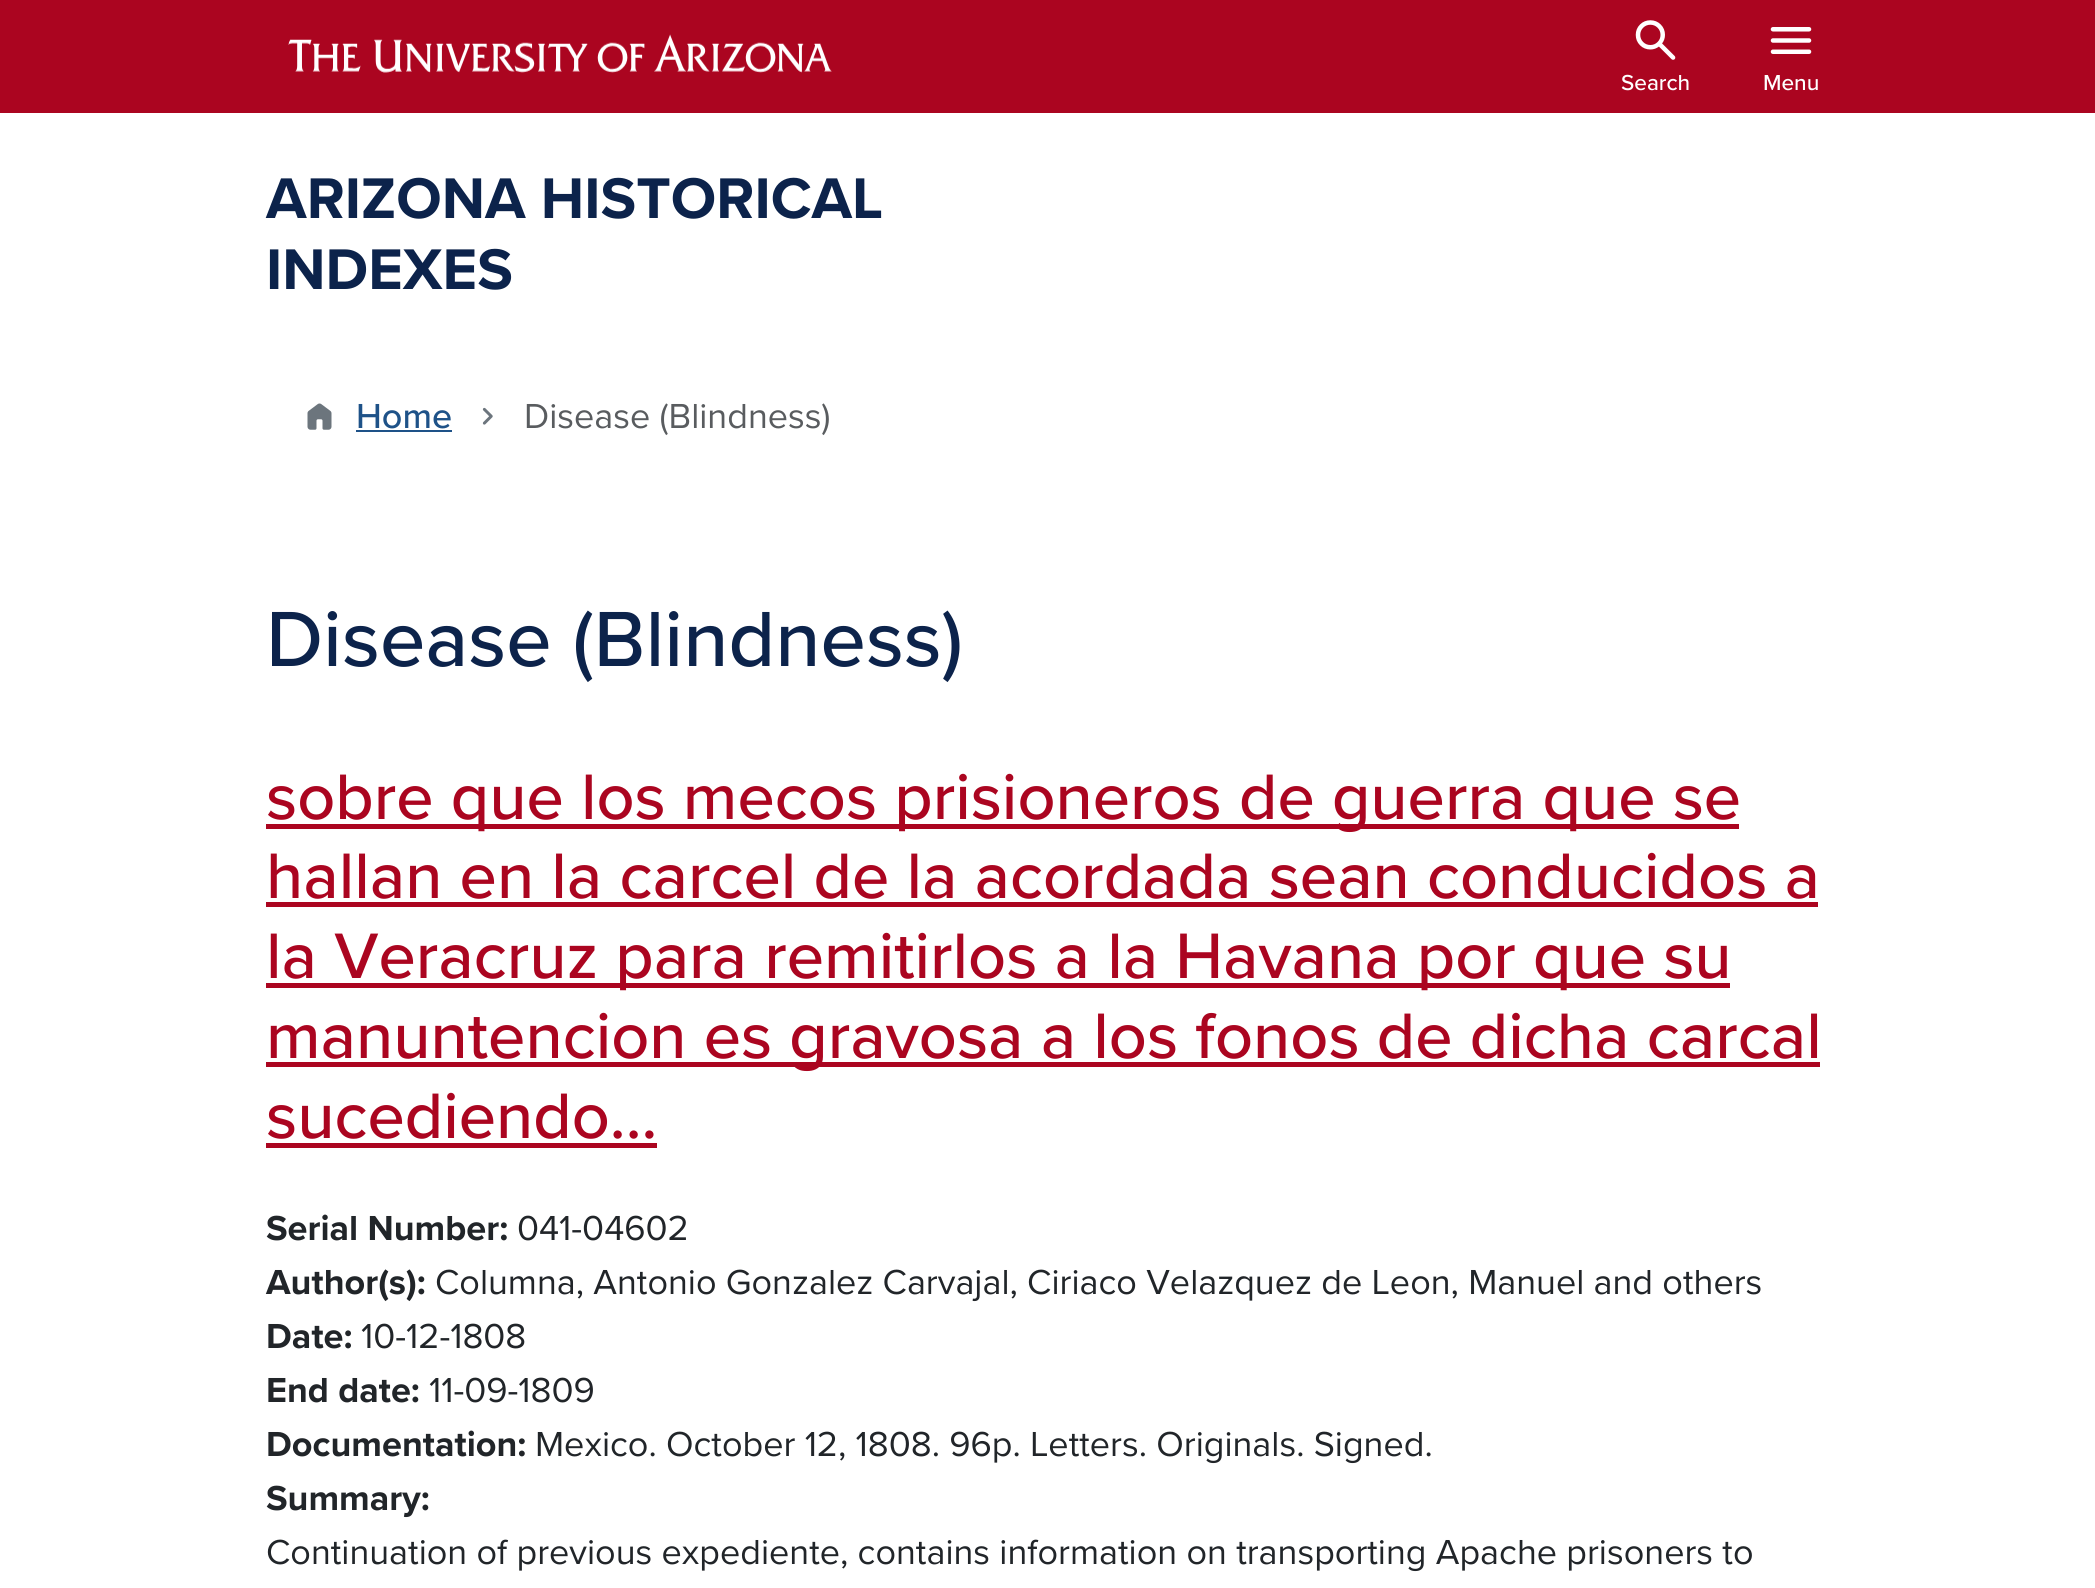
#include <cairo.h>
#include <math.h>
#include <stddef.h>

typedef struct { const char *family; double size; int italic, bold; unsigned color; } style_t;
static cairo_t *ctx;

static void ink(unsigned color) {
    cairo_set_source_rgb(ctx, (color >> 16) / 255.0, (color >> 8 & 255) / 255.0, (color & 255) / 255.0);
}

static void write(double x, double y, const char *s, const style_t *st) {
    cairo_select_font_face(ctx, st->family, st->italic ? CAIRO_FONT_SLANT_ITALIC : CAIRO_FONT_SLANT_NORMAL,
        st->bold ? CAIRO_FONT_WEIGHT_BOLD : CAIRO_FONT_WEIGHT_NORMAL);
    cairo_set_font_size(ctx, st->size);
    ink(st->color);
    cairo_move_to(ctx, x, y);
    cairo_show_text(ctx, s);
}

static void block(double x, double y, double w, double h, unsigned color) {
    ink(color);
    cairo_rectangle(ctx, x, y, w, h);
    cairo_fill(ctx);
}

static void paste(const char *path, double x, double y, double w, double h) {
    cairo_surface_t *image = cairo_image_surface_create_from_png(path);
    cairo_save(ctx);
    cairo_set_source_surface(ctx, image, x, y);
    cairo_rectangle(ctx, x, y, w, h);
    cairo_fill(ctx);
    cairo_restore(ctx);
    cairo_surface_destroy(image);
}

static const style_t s1 = {"Proxima Nova Medium", 22.5, 0, 0, 0xffffff};
static const style_t s2 = {"Proxima Nova", 59.4, 0, 1, 0x0c234b};
static const style_t s3 = {"Proxima Nova Medium", 36, 0, 0, 0x1e5288};
static const style_t s4 = {"Proxima Nova", 36, 0, 0, 0x595c5f};
static const style_t s5 = {"Proxima Nova Medium", 81, 0, 0, 0x0c234b};
static const style_t s6 = {"Proxima Nova Medium", 66.6, 0, 0, 0xab0520};
static const style_t s7 = {"Proxima Nova", 36, 0, 1, 0x212529};
static const style_t s8 = {"Proxima Nova", 36, 0, 0, 0x212529};

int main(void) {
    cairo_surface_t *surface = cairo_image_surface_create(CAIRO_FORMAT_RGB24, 2095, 1588);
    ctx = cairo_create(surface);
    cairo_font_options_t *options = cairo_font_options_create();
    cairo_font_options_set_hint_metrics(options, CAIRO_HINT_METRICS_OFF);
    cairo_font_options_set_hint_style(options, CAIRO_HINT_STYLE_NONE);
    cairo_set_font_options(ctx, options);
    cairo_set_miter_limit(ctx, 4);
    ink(0xffffff);
    cairo_paint(ctx);
    block(0, 0, 2095, 113, 0xab0520);
    paste("pic1.png", 288, 34, 544, 39);
    paste("pic2.png", 1635, 20, 41, 40);
    write(1621, 90, "Search", &s1);
    paste("pic3.png", 1770, 27, 42, 27);
    write(1763, 90, "Menu", &s1);
    write(266, 218, "ARIZONA HISTORICAL", &s2);
    write(266, 289, "INDEXES", &s2);
    paste("pic4.png", 307, 403, 25, 27);
    write(356, 428, "Home", &s3);
    block(356, 430, 96, 2, 0x1e5288);
    paste("pic5.png", 482, 407, 11, 18);
    write(524, 428, "Disease (Blindness)", &s4);
    write(266, 666, "Disease (Blindness)", &s5);
    block(266, 824, 1473, 5, 0xab0520);
    write(266, 819, "sobre que los mecos prisioneros de guerra que se", &s6);
    write(266, 898, "hallan en la carcel de la acordada sean conducidos a", &s6);
    block(266, 902, 1552, 5, 0xab0520);
    block(266, 983, 1464, 5, 0xab0520);
    write(266, 978, "la Veracruz para remitirlos a la Havana por que su", &s6);
    block(266, 1062, 1554, 5, 0xab0520);
    write(266, 1058, "manuntencion es gravosa a los fonos de dicha carcal", &s6);
    write(266, 1138, "sucediendo...", &s6);
    block(266, 1143, 391, 5, 0xab0520);
    write(266, 1240, "Serial Number:", &s7);
    write(517, 1240, "041-04602", &s8);
    write(266, 1294, "Author(s):", &s7);
    write(435, 1294, "Columna, Antonio Gonzalez Carvajal, Ciriaco Velazquez de Leon, Manuel and others", &s8);
    write(266, 1348, "Date:", &s7);
    write(361, 1348, "10-12-1808", &s8);
    write(266, 1402, "End date:", &s7);
    write(429, 1402, "11-09-1809", &s8);
    write(266, 1456, "Documentation:", &s7);
    write(535, 1456, "Mexico. October 12, 1808. 96p. Letters. Originals. Signed.", &s8);
    write(266, 1510, "Summary:", &s7);
    write(266, 1564, "Continuation of previous expediente, contains information on transporting Apache prisoners to", &s8);
    cairo_surface_write_to_png(surface, "screenshot.png");
    cairo_font_options_destroy(options);
    cairo_destroy(ctx);
    cairo_surface_destroy(surface);
    return 0;
}
